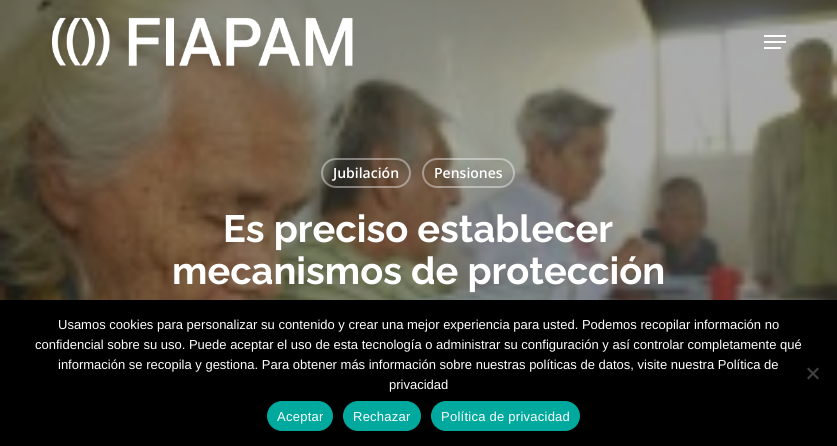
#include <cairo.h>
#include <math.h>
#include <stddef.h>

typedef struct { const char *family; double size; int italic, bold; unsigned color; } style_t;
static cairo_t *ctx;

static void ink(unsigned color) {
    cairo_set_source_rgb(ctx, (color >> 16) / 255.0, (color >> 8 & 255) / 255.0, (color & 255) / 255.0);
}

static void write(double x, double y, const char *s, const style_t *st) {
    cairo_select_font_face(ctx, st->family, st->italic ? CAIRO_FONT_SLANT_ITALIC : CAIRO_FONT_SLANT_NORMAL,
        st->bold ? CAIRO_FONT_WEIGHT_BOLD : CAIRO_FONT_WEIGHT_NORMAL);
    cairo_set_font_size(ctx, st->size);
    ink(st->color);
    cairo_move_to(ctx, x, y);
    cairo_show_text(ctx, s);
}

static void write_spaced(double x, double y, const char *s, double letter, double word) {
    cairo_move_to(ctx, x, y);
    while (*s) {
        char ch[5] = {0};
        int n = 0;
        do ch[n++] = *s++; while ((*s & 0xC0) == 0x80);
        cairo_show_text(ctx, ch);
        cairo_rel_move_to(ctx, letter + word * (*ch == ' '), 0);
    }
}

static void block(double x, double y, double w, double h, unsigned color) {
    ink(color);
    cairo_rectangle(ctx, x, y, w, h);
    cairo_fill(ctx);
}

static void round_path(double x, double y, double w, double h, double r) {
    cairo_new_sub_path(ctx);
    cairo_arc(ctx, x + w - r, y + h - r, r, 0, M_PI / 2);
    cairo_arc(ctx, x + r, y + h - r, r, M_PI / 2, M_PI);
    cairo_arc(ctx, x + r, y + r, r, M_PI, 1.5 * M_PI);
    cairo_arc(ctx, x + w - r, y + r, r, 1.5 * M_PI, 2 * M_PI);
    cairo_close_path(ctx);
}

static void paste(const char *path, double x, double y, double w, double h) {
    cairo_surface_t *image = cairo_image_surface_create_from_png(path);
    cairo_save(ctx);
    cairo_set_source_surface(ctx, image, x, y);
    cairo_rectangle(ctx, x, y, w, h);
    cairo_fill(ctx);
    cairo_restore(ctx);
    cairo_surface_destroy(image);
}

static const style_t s1 = {"Open Sans SemiBold", 14, 0, 0, 0xffffff};
static const style_t s2 = {"Raleway", 38, 0, 1, 0xffffff};
static const style_t s3 = {"Liberation Sans", 13, 0, 0, 0xffffff};

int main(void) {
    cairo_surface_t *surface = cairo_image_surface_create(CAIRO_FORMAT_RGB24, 837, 446);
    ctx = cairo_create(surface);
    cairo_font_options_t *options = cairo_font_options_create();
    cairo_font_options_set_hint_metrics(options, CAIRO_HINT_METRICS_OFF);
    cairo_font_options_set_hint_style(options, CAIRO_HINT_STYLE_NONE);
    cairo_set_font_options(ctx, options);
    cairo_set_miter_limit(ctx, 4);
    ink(0xffffff);
    cairo_paint(ctx);
    paste("pic2.png", 0, 0, 837, 300);
    paste("pic1.png", 52, 17, 301, 49);
    block(764, 35, 22, 2, 0xffffff);
    block(764, 47, 17, 2, 0xffffff);
    block(764, 41, 22, 2, 0xffffff);
    round_path(322, 159, 88, 28, 14);
    cairo_set_source_rgba(ctx, 1, 1, 1, 0.4);
    cairo_stroke(ctx);
    write(333, 178, "Jubilación", &s1);
    round_path(423, 159, 91, 28, 14);
    cairo_set_source_rgba(ctx, 1, 1, 1, 0.4);
    cairo_stroke(ctx);
    write(434, 178, "Pensiones", &s1);
    write(223, 242, "Es preciso establecer", &s2);
    write(172, 284, "mecanismos de protección", &s2);
    block(0, 300, 837, 146, 0x000000);
    write(58, 329, "Usamos cookies para personalizar su contenido y crear una mejor experiencia para usted. Podemos recopilar información no", &s3);
    write(35, 349, "confidencial sobre su uso. Puede aceptar el uso de esta tecnología o administrar su configuración y así controlar completamente qué", &s3);
    write(58, 369, "información se recopila y gestiona. Para obtener más información sobre nuestras políticas de datos, visite nuestra Política de", &s3);
    write(389, 389, "privacidad", &s3);
    ink(0x404040);
    cairo_new_path(ctx);
    cairo_move_to(ctx, 817.5, 367.5);
    cairo_line_to(ctx, 819, 369);
    cairo_line_to(ctx, 808.5, 379.5);
    cairo_line_to(ctx, 807, 378);
    cairo_close_path(ctx);
    cairo_fill(ctx);
    cairo_new_path(ctx);
    cairo_move_to(ctx, 807, 369);
    cairo_line_to(ctx, 808.5, 367.5);
    cairo_line_to(ctx, 819, 378);
    cairo_line_to(ctx, 817.5, 379.5);
    cairo_close_path(ctx);
    cairo_fill(ctx);
    ink(0x00a99d);
    round_path(267, 401, 66, 30, 15);
    cairo_fill(ctx);
    ink(0xffffff);
    write_spaced(277, 421, "Aceptar", 0.25, 0);
    ink(0x00a99d);
    round_path(343, 401, 78, 30, 15);
    cairo_fill(ctx);
    ink(0xffffff);
    write_spaced(353, 421, "Rechazar", 0.25, 0);
    ink(0x00a99d);
    round_path(431, 401, 149, 30, 15);
    cairo_fill(ctx);
    ink(0xffffff);
    write_spaced(441, 421, "Política de privacidad", 0.25, 0);
    cairo_surface_write_to_png(surface, "screenshot.png");
    cairo_font_options_destroy(options);
    cairo_destroy(ctx);
    cairo_surface_destroy(surface);
    return 0;
}
